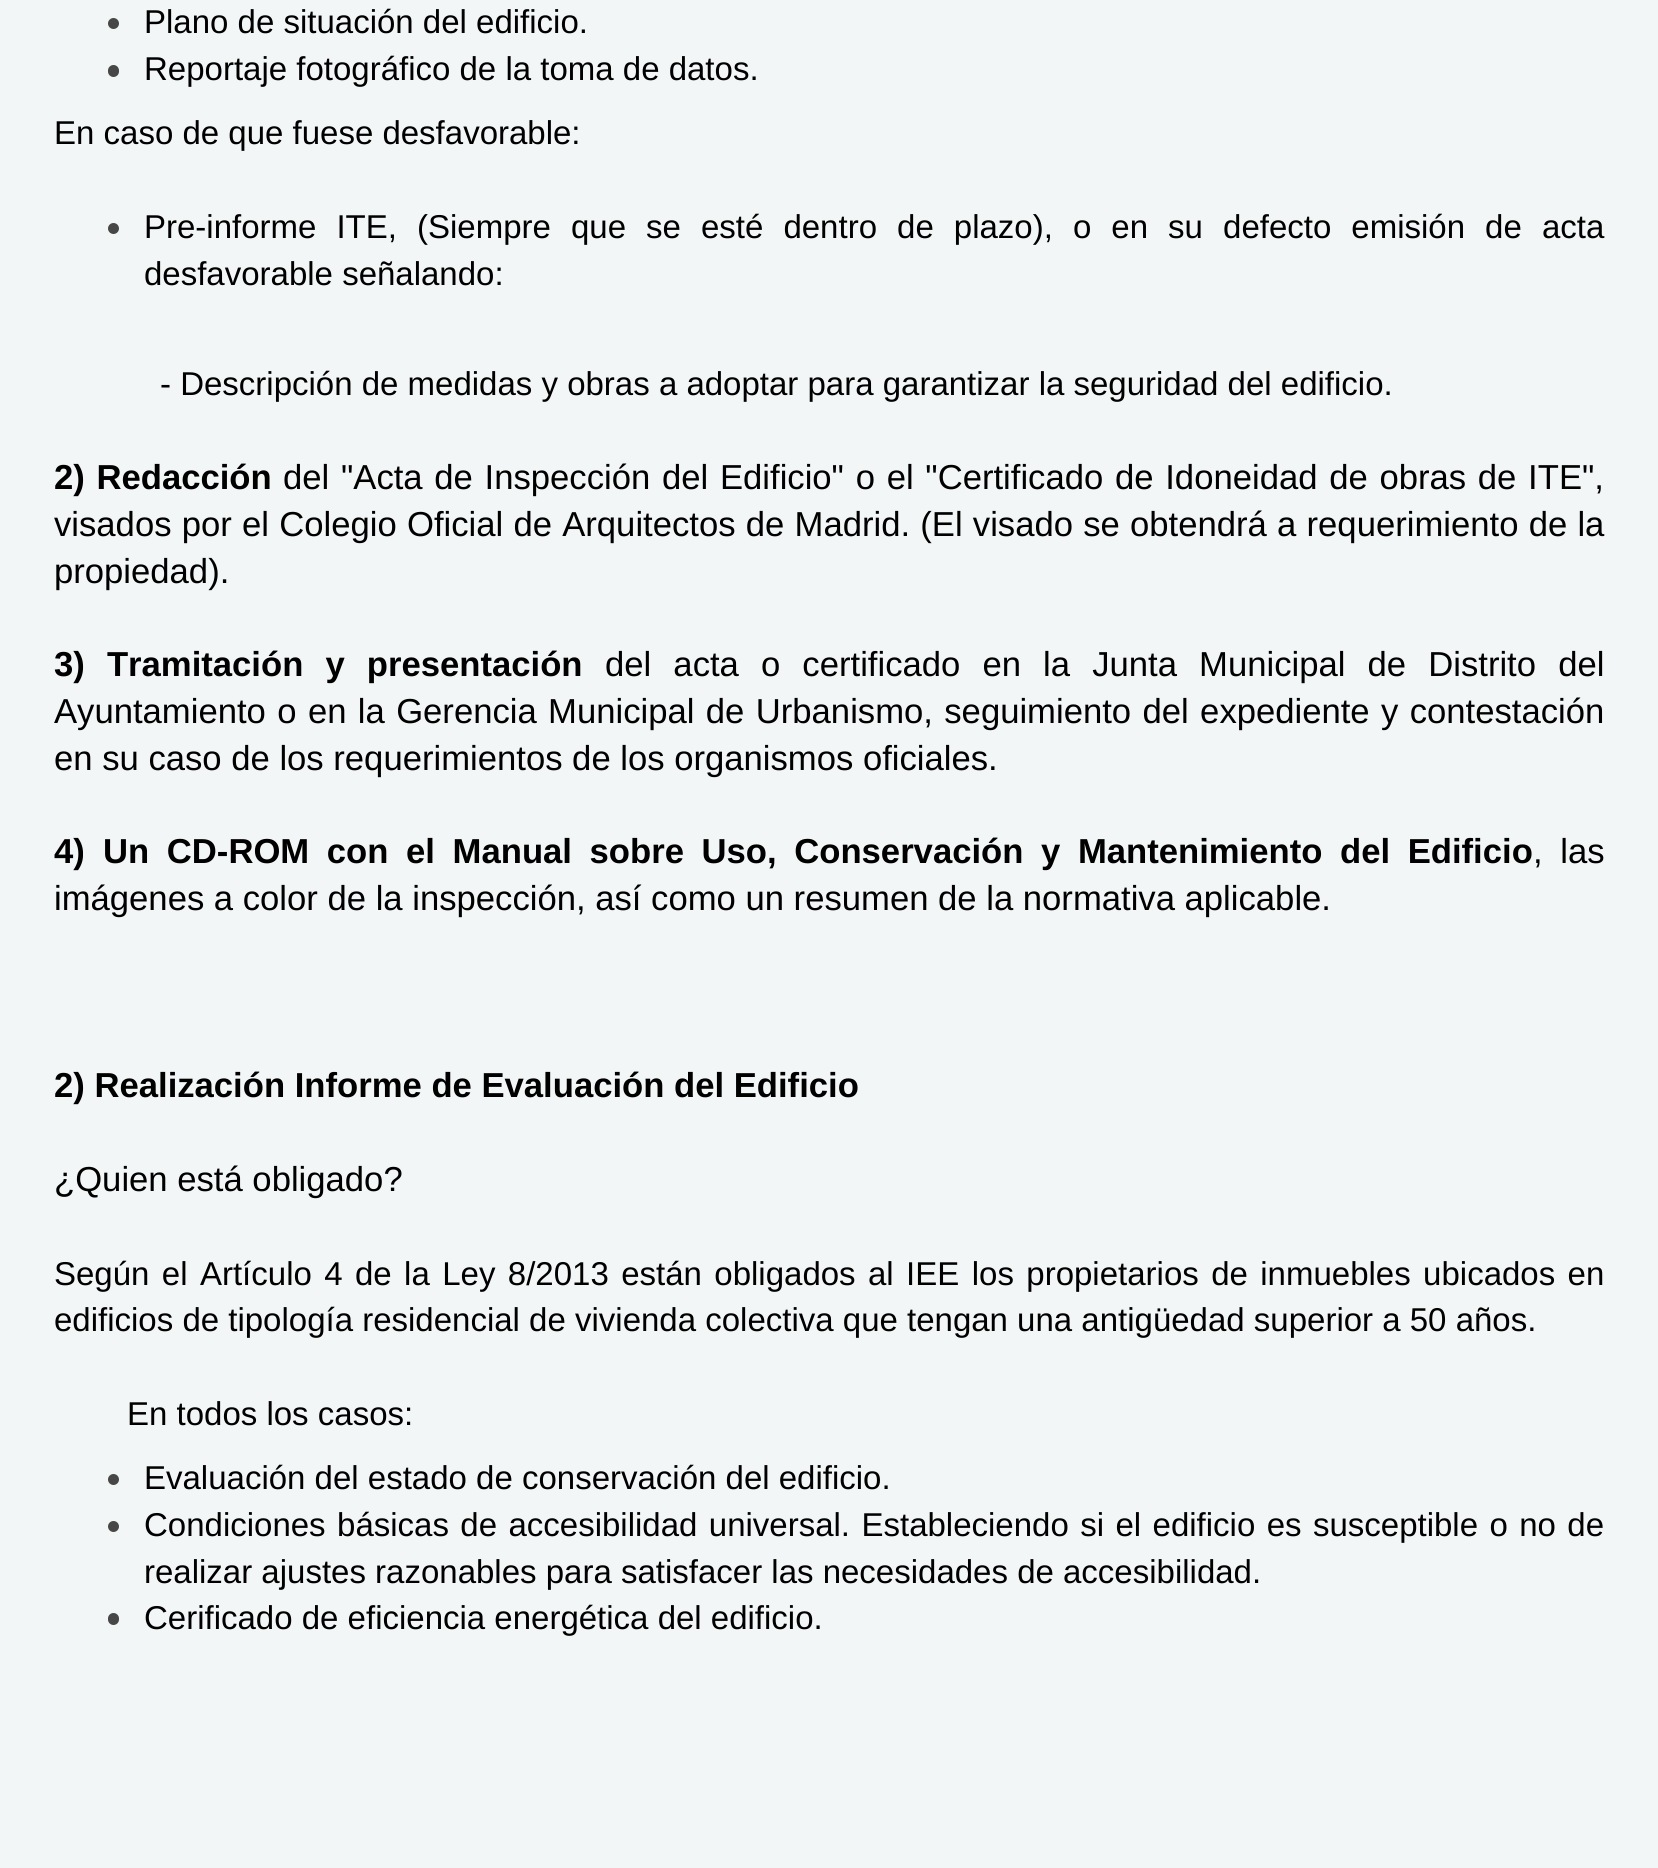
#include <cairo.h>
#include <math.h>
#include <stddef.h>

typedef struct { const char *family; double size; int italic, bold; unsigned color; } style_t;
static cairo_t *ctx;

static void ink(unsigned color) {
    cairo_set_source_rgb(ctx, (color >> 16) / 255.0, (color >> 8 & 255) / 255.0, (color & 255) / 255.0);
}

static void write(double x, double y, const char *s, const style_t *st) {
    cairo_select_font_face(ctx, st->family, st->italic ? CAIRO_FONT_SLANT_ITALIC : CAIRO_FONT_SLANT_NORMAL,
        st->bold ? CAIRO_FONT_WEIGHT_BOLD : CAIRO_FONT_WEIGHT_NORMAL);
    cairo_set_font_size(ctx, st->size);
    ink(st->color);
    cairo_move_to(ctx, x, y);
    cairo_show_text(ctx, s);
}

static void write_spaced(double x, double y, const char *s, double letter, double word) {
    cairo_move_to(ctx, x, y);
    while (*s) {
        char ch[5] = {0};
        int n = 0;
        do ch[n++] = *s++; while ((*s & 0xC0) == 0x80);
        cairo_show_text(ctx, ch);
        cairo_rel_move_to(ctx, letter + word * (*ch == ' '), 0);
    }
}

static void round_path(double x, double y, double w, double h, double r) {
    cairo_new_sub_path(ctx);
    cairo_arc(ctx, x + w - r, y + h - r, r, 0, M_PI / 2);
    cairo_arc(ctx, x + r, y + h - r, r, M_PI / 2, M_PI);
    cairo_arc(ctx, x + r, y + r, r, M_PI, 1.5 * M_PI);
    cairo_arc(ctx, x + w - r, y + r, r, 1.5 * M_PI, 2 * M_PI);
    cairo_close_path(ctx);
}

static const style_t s1 = {"Liberation Sans", 33, 0, 0, 0x000000};
static const style_t s2 = {"Liberation Sans", 34.65, 0, 0, 0x000000};
static const style_t s3 = {"Liberation Sans", 34.65, 0, 1, 0x000000};

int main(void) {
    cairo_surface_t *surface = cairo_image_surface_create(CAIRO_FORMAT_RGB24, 1658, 1868);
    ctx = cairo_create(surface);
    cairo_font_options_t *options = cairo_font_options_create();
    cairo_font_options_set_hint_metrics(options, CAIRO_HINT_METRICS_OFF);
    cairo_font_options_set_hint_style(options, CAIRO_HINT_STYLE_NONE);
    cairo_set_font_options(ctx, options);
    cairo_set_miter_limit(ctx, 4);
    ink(0xf3f6f6);
    cairo_paint(ctx);
    ink(0x474747);
    cairo_arc(ctx, 113.5, 23.5, 5.5, 0, 2 * M_PI);
    cairo_fill(ctx);
    write(144, 33, "Plano de situación del edificio.", &s1);
    ink(0x474747);
    round_path(108, 65, 11, 12, 5.5);
    cairo_fill(ctx);
    write(144, 80, "Reportaje fotográfico de la toma de datos.", &s1);
    write(54, 144, "En caso de que fuese desfavorable:", &s1);
    ink(0x474747);
    cairo_new_path(ctx);
    cairo_arc(ctx, 113.5, 228.5, 5.5, 0, 2 * M_PI);
    cairo_fill(ctx);
    ink(0x000000);
    write_spaced(144, 238, "Pre-informe ITE, (Siempre que se esté dentro de plazo), o en su defecto emisión de acta", 0, 10.9);
    write(144, 285, "desfavorable señalando:", &s1);
    write(160, 395, "- Descripción de medidas y obras a adoptar para garantizar la seguridad del edificio.", &s1);
    cairo_select_font_face(ctx, "Liberation Sans", CAIRO_FONT_SLANT_NORMAL, CAIRO_FONT_WEIGHT_BOLD);
    cairo_set_font_size(ctx, 34.65);
    write_spaced(54, 489, "2) Redacción", 0, 2);
    cairo_select_font_face(ctx, "Liberation Sans", CAIRO_FONT_SLANT_NORMAL, CAIRO_FONT_WEIGHT_NORMAL);
    write_spaced(283, 489, "del \"Acta de Inspección del Edificio\" o el \"Certificado de Idoneidad de obras de ITE\",", 0, 2.1);
    write_spaced(54, 536, "visados por el Colegio Oficial de Arquitectos de Madrid. (El visado se obtendrá a requerimiento de la", 0, 0.6);
    write(54, 583, "propiedad).", &s2);
    cairo_select_font_face(ctx, "Liberation Sans", CAIRO_FONT_SLANT_NORMAL, CAIRO_FONT_WEIGHT_BOLD);
    write_spaced(54, 676, "3) Tramitación y presentación", 0, 12.5);
    cairo_select_font_face(ctx, "Liberation Sans", CAIRO_FONT_SLANT_NORMAL, CAIRO_FONT_WEIGHT_NORMAL);
    write_spaced(605, 676, "del acta o certificado en la Junta Municipal de Distrito del", 0, 12.5);
    write_spaced(54, 723, "Ayuntamiento o en la Gerencia Municipal de Urbanismo, seguimiento del expediente y contestación", 0, 1.75);
    write(54, 770, "en su caso de los requerimientos de los organismos oficiales.", &s2);
    write(54, 863, "4)", &s3);
    write(103, 863, "U", &s3);
    write_spaced(128, 863, "n CD-ROM con el Manual sobre Uso, Conservación y Mantenimiento del Edificio", 0, 8);
    cairo_select_font_face(ctx, "Liberation Sans", CAIRO_FONT_SLANT_NORMAL, CAIRO_FONT_WEIGHT_NORMAL);
    write_spaced(1533, 863, ", las", 0, 8);
    write(54, 910, "imágenes a color de la inspección, así como un resumen de la normativa aplicable.", &s2);
    write(54, 1097, "2) Realización Informe de Evaluación del Edificio", &s3);
    write(54, 1191, "¿Quien está obligado?", &s2);
    cairo_set_font_size(ctx, 33);
    write_spaced(54, 1285, "Según el Artículo 4 de la Ley 8/2013 están obligados al IEE los propietarios de inmuebles ubicados en", 0, 3.25);
    write(54, 1331, "edificios de tipología residencial de vivienda colectiva que tengan una antigüedad superior a 50 años.", &s1);
    write(127, 1425, "En todos los casos:", &s1);
    ink(0x474747);
    cairo_new_path(ctx);
    cairo_arc(ctx, 113.5, 1479.5, 5.5, 0, 2 * M_PI);
    cairo_fill(ctx);
    write(144, 1489, "Evaluación del estado de conservación del edificio.", &s1);
    ink(0x474747);
    cairo_new_path(ctx);
    cairo_arc(ctx, 113.5, 1526.5, 5.5, 0, 2 * M_PI);
    cairo_fill(ctx);
    ink(0x000000);
    write_spaced(144, 1536, "Condiciones básicas de accesibilidad universal. Estableciendo si el edificio es susceptible o no de", 0, 2.25);
    write(144, 1583, "realizar ajustes razonables para satisfacer las necesidades de accesibilidad.", &s1);
    ink(0x474747);
    round_path(108, 1613, 11, 12, 5.5);
    cairo_fill(ctx);
    write(144, 1629, "Cerificado de eficiencia energética del edificio.", &s1);
    cairo_surface_write_to_png(surface, "screenshot.png");
    cairo_font_options_destroy(options);
    cairo_destroy(ctx);
    cairo_surface_destroy(surface);
    return 0;
}
